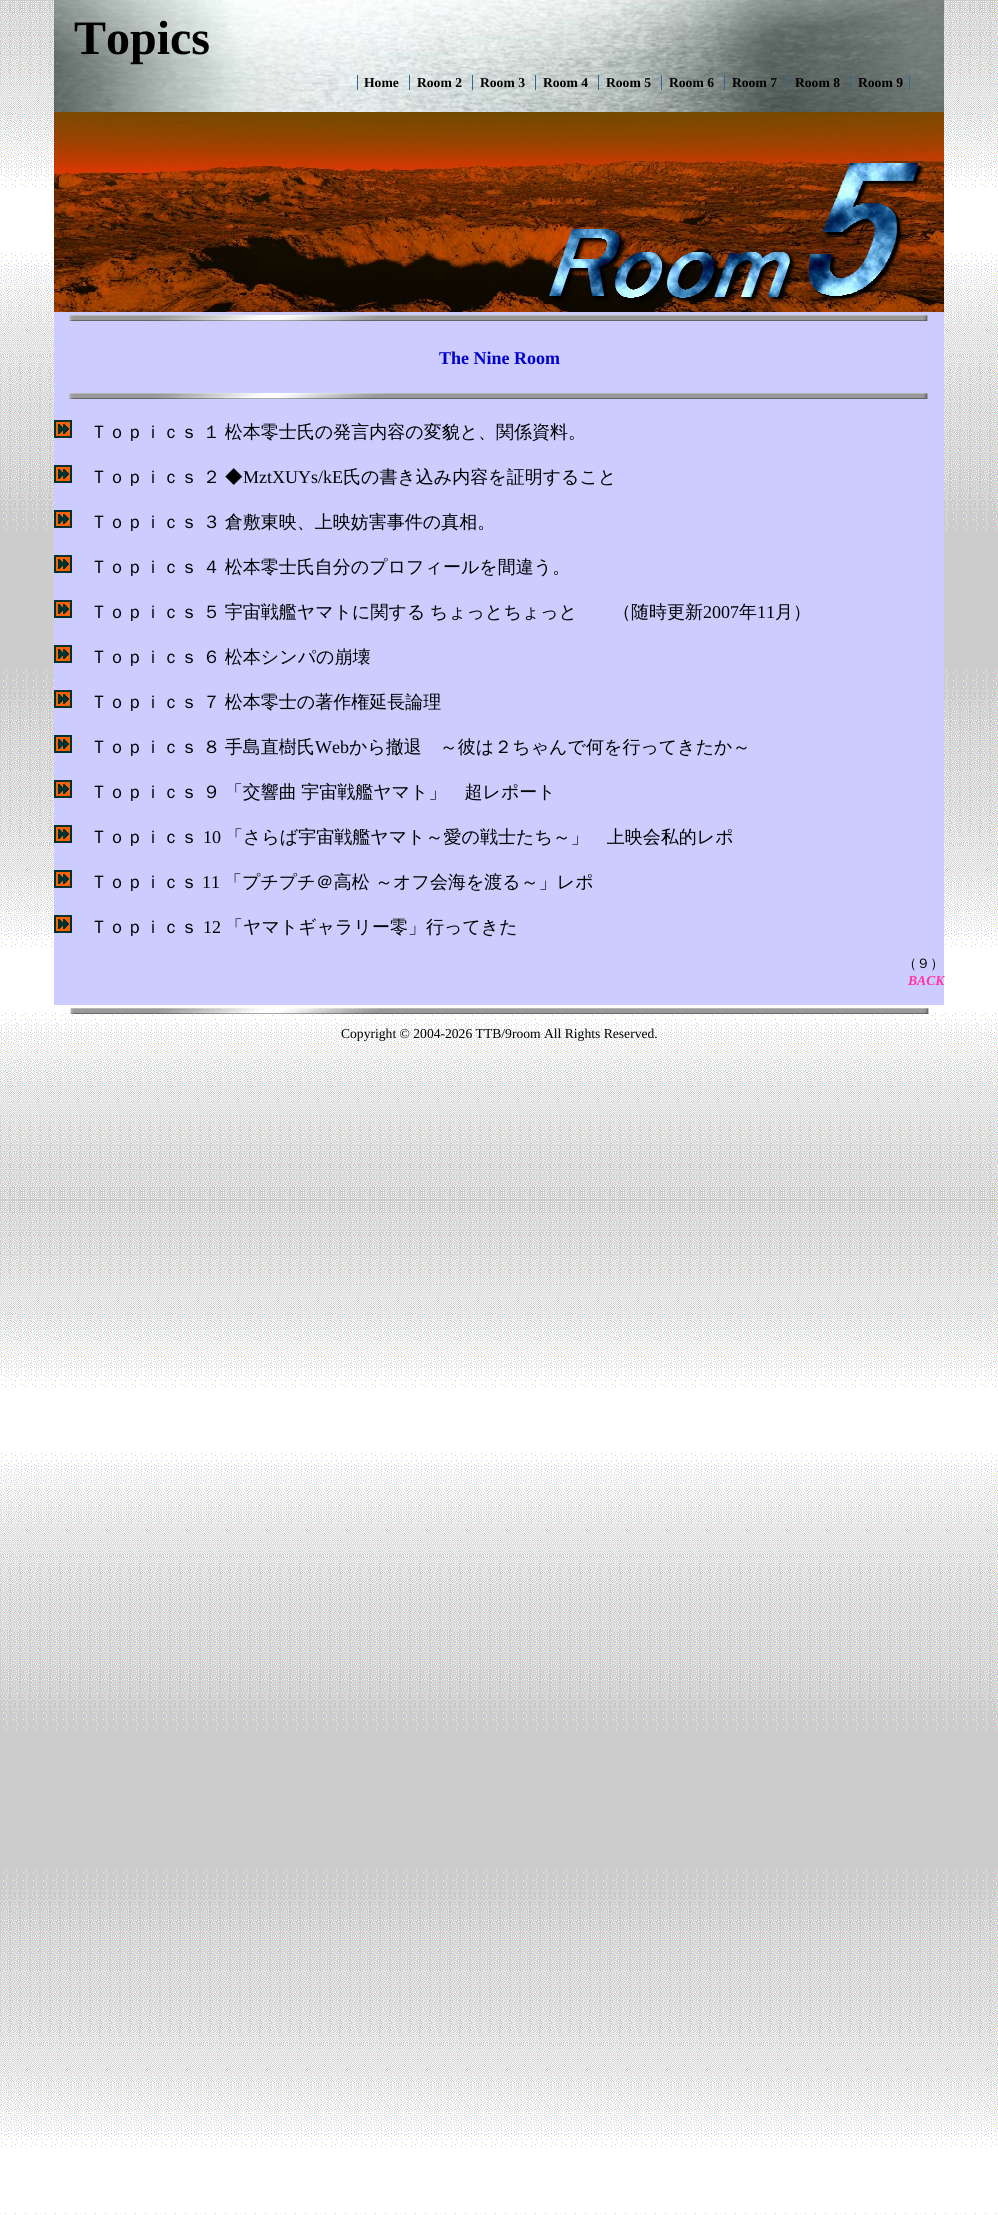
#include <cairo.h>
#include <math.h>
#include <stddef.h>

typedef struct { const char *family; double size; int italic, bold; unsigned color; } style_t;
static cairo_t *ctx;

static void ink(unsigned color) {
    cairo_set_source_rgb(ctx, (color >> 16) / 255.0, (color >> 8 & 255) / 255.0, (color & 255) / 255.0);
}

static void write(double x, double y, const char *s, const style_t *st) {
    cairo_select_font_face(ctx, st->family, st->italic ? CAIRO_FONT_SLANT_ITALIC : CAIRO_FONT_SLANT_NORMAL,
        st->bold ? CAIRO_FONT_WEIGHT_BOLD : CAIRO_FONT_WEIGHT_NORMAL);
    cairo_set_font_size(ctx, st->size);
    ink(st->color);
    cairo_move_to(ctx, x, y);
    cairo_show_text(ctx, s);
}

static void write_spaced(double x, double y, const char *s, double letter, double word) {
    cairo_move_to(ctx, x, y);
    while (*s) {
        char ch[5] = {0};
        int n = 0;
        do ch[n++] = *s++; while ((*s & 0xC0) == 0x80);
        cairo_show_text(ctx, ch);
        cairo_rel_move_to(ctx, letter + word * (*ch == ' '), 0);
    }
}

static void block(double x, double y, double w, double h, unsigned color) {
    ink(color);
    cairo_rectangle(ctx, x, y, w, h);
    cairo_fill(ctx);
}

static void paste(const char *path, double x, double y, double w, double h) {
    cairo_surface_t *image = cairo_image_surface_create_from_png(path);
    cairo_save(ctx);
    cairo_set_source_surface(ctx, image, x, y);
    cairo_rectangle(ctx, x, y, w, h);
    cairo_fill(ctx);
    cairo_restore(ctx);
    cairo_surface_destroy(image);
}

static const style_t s1 = {"Liberation Serif", 48, 0, 1, 0x000000};
static const style_t s2 = {"Liberation Serif", 13.6, 0, 1, 0x000000};
static const style_t s3 = {"Liberation Serif", 18, 0, 1, 0x0000cc};
static const style_t s4 = {"Liberation Serif", 18, 0, 0, 0x000000};
static const style_t s5 = {"WenQuanYi Zen Hei Medium", 18, 0, 0, 0x000000};
static const style_t s6 = {"WenQuanYi Zen Hei Medium", 13.6, 0, 0, 0x000000};
static const style_t s7 = {"Liberation Serif", 13.6, 1, 1, 0xff3399};
static const style_t s8 = {"Liberation Serif", 13.6, 0, 0, 0x000000};

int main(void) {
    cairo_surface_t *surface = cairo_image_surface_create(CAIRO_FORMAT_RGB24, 998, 2215);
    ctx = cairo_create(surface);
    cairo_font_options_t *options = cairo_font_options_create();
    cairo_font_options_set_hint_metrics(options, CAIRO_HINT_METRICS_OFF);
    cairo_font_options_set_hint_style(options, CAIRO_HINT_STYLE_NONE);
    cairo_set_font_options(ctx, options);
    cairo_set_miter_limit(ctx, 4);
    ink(0xcccccc);
    cairo_paint(ctx);
    paste("pic1.png", 0, 1, 998, 2214);
    block(54, 312, 890, 693, 0xccccff);
    paste("pic2.png", 54, 0, 890, 112);
    write(74, 54, "Topics", &s1);
    write(364, 87, "Home", &s2);
    block(357, 75, 1, 15, 0x336699);
    write(417, 87, "Room 2", &s2);
    block(409, 75, 1, 15, 0x336699);
    write(480, 87, "Room 3", &s2);
    block(472, 75, 1, 15, 0x336699);
    write(543, 87, "Room 4", &s2);
    block(535, 75, 1, 15, 0x336699);
    write(606, 87, "Room 5", &s2);
    block(598, 75, 1, 15, 0x336699);
    write(669, 87, "Room 6", &s2);
    block(661, 75, 1, 15, 0x336699);
    write(732, 87, "Room 7", &s2);
    block(724, 75, 1, 15, 0x336699);
    write(795, 87, "Room 8", &s2);
    block(787, 75, 1, 15, 0x336699);
    write(858, 87, "Room 9", &s2);
    block(850, 75, 1, 15, 0x336699);
    block(909, 75, 1, 15, 0x336699);
    paste("pic3.png", 54, 112, 890, 200);
    paste("pic4.png", 69, 315, 859, 6);
    write(439, 364, "The Nine Room", &s3);
    paste("pic4.png", 69, 393, 859, 6);
    paste("pic5.png", 54, 420, 18, 18);
    cairo_select_font_face(ctx, "WenQuanYi Zen Hei Medium", CAIRO_FONT_SLANT_NORMAL, CAIRO_FONT_WEIGHT_NORMAL);
    ink(0x000000);
    write_spaced(90, 438, "Ｔｏｐｉｃｓ １ 松本零士氏の発言内容の変貌と、関係資料。", 0, -1);
    paste("pic5.png", 54, 465, 18, 18);
    write_spaced(90, 483, "Ｔｏｐｉｃｓ ２ ◆", 0, -1);
    write(243, 483, "MztXUYs/kE", &s4);
    write(343, 483, "氏の書き込み内容を証明すること", &s5);
    paste("pic5.png", 54, 510, 18, 18);
    write_spaced(90, 528, "Ｔｏｐｉｃｓ ３ 倉敷東映、上映妨害事件の真相。", 0, -1);
    paste("pic5.png", 54, 555, 18, 18);
    write_spaced(90, 573, "Ｔｏｐｉｃｓ ４ 松本零士氏自分のプロフィールを間違う。", 0, -1);
    paste("pic5.png", 54, 600, 18, 18);
    write_spaced(90, 618, "Ｔｏｐｉｃｓ ５ 宇宙戦艦ヤマトに関する ちょっとちょっと　　（随時更新", 0, -1);
    write(703, 618, "2007", &s4);
    write(739, 618, "年", &s5);
    write(757, 618, "11", &s4);
    write(775, 618, "月）", &s5);
    paste("pic5.png", 54, 645, 18, 18);
    write_spaced(90, 663, "Ｔｏｐｉｃｓ ６ 松本シンパの崩壊", 0, -1);
    paste("pic5.png", 54, 690, 18, 18);
    write_spaced(90, 708, "Ｔｏｐｉｃｓ ７ 松本零士の著作権延長論理", 0, -1);
    paste("pic5.png", 54, 735, 18, 18);
    write_spaced(90, 753, "Ｔｏｐｉｃｓ ８ 手島直樹氏", 0, -1);
    write(315, 753, "Web", &s4);
    write(349, 753, "から撤退　～彼は２ちゃんで何を行ってきたか～", &s5);
    paste("pic5.png", 54, 780, 18, 18);
    write_spaced(90, 798, "Ｔｏｐｉｃｓ ９ 「交響曲 宇宙戦艦ヤマト」　超レポート", 0, -1);
    paste("pic5.png", 54, 825, 18, 18);
    write(90, 843, "Ｔｏｐｉｃｓ", &s5);
    write(203, 843, "10", &s4);
    write(225, 843, "「さらば宇宙戦艦ヤマト～愛の戦士たち～」　上映会私的レポ", &s5);
    paste("pic5.png", 54, 870, 18, 18);
    write(90, 888, "Ｔｏｐｉｃｓ", &s5);
    write(202, 888, "11", &s4);
    write(224, 888, "「プチプチ＠高松 ～オフ会海を渡る～」レポ", &s5);
    paste("pic5.png", 54, 915, 18, 18);
    write(90, 933, "Ｔｏｐｉｃｓ", &s5);
    write(203, 933, "12", &s4);
    write(225, 933, "「ヤマトギャラリー零」行ってきた", &s5);
    write(903, 968, "（９）", &s6);
    write(908, 985, "BACK", &s7);
    paste("pic6.png", 70, 1008, 859, 6);
    write(341, 1038, "Copyright © 2004-2026 TTB/9room All Rights Reserved.", &s8);
    cairo_surface_write_to_png(surface, "screenshot.png");
    cairo_font_options_destroy(options);
    cairo_destroy(ctx);
    cairo_surface_destroy(surface);
    return 0;
}
